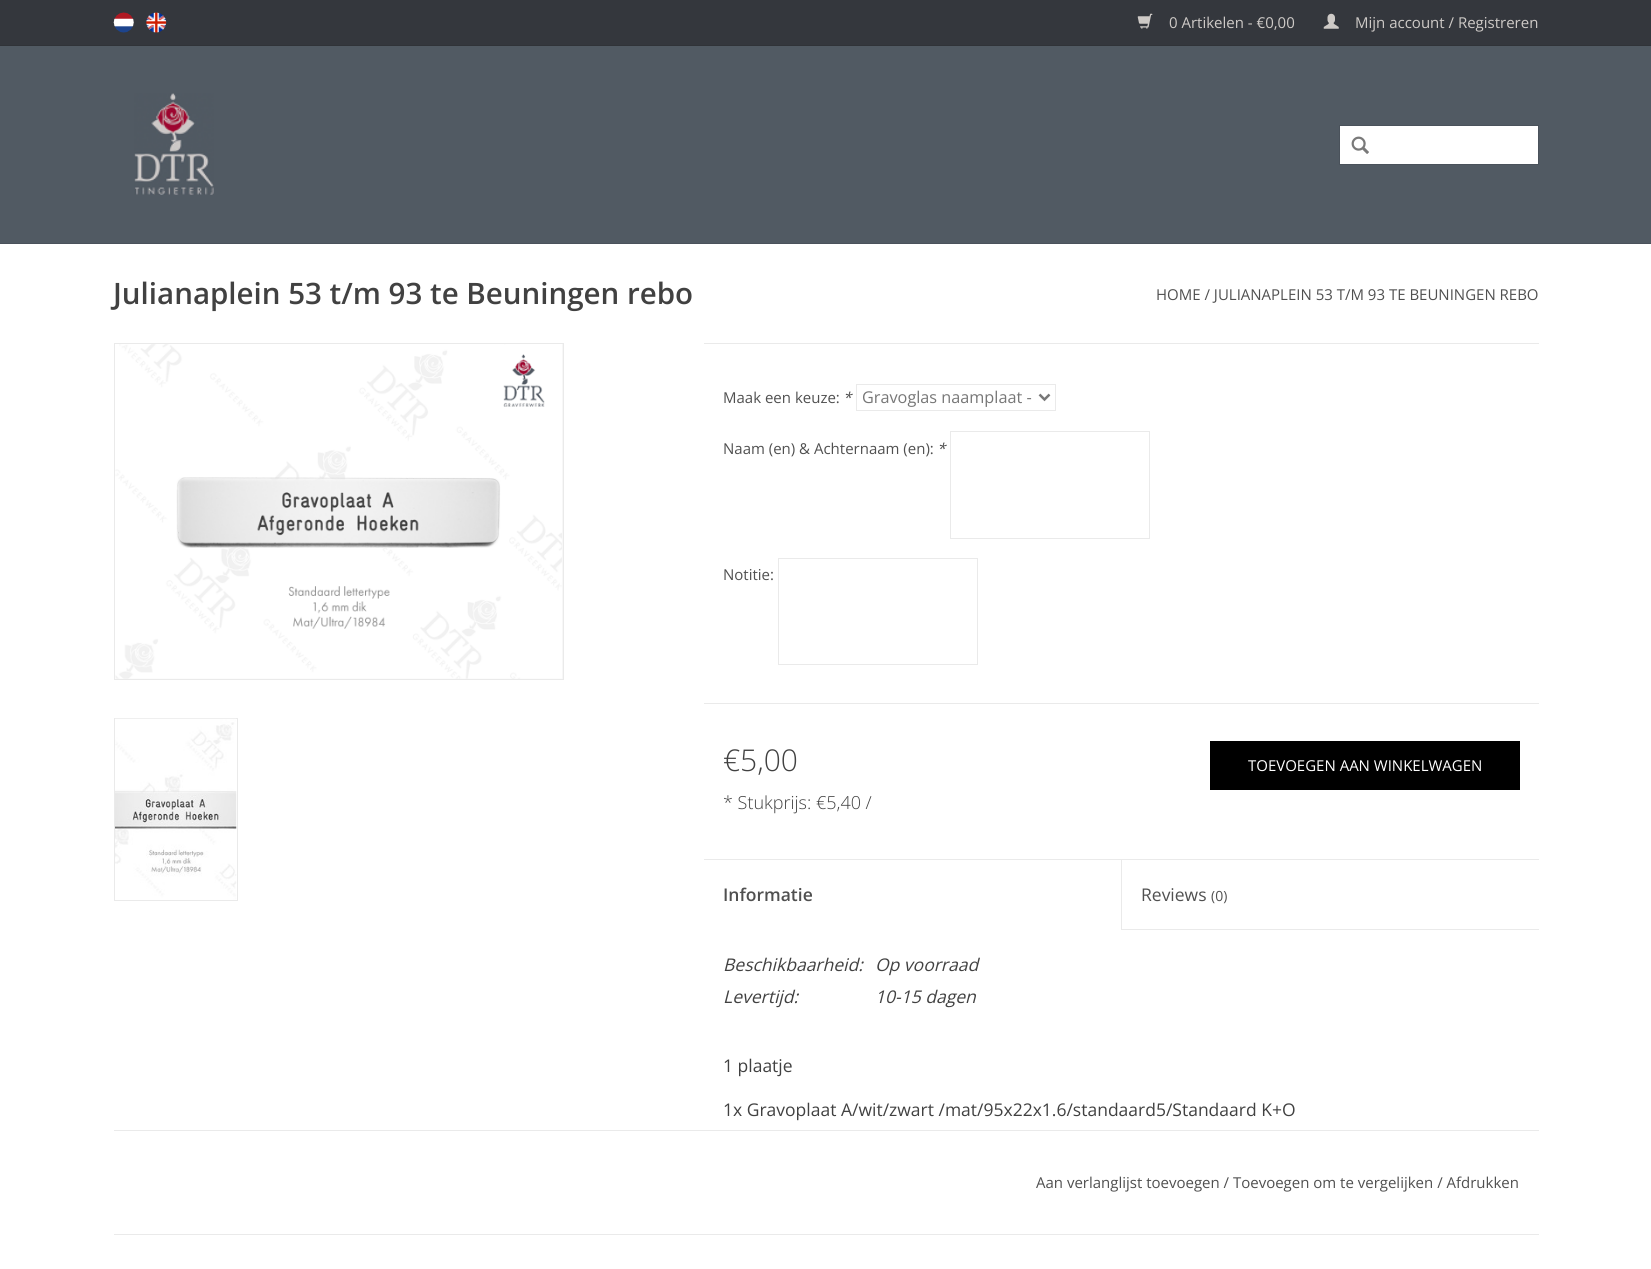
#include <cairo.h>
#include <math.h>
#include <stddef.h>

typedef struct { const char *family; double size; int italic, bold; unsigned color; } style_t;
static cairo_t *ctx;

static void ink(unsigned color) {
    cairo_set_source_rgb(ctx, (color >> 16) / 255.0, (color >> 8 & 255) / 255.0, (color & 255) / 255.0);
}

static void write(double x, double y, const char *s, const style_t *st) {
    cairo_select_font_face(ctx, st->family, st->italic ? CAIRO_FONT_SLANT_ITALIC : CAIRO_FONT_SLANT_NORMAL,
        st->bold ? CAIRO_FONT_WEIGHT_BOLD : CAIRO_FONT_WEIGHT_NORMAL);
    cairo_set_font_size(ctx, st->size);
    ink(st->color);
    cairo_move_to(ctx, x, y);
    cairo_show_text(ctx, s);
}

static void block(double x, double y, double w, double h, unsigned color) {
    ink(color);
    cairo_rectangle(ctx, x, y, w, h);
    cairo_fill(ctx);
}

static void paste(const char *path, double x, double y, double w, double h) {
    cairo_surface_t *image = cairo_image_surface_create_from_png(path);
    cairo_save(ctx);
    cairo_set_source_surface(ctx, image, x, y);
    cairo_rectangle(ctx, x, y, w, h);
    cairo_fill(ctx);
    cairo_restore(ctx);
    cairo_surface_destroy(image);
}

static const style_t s1 = {"Open Sans", 15, 0, 0, 0xcecac7};
static const style_t s2 = {"Open Sans SemiBold", 29.5, 0, 0, 0x414141};
static const style_t s3 = {"Open Sans", 15, 0, 0, 0x505050};
static const style_t s4 = {"Open Sans", 15, 1, 0, 0x505050};
static const style_t s5 = {"Open Sans", 16.25, 0, 0, 0x777777};
static const style_t s6 = {"Open Sans Light", 30, 0, 0, 0x414141};
static const style_t s7 = {"Open Sans Light", 18, 0, 0, 0x414141};
static const style_t s8 = {"Open Sans", 15, 0, 0, 0xffffff};
static const style_t s9 = {"Open Sans SemiBold", 17.5, 0, 0, 0x505050};
static const style_t s10 = {"Open Sans", 17.5, 0, 0, 0x505050};
static const style_t s11 = {"Open Sans", 14, 0, 0, 0x505050};
static const style_t s12 = {"Open Sans", 17.5, 1, 0, 0x414141};
static const style_t s13 = {"Open Sans", 17.5, 0, 0, 0x414141};

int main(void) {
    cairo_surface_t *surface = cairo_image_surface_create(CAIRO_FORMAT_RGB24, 1651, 1269);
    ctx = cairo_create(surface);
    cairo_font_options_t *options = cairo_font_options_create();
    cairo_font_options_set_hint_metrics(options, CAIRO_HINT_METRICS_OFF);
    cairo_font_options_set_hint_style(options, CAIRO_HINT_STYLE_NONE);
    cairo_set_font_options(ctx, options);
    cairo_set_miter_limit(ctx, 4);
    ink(0xffffff);
    cairo_paint(ctx);
    block(0, 46, 1651, 197, 0x515a63);
    block(0, 243, 1651, 1, 0x4a525b);
    block(0, 0, 1651, 45, 0x34373d);
    block(0, 45, 1651, 1, 0x303338);
    paste("pic1.png", 113, 12, 21, 21);
    paste("pic2.png", 146, 12, 21, 21);
    paste("pic3.png", 1137, 13, 16, 16);
    write(1169, 28, "0 Artikelen - €0,00", &s1);
    paste("pic4.png", 1323, 13, 16, 16);
    write(1355, 28, "Mijn account / Registreren", &s1);
    paste("pic5.png", 134, 93, 80, 102);
    ink(0xffffff);
    cairo_rectangle(ctx, 1339.5, 125.5, 199, 39);
    cairo_fill_preserve(ctx);
    ink(0x4a525b);
    cairo_set_line_width(ctx, 1);
    cairo_stroke(ctx);
    paste("pic6.png", 1351, 136, 18, 18);
    write(113, 304, "Julianaplein 53 t/m 93 te Beuningen rebo", &s2);
    write(1156, 300, "HOME / JULIANAPLEIN 53 T/M 93 TE BEUNINGEN REBO", &s3);
    cairo_rectangle(ctx, 114.5, 343.5, 449, 336);
    ink(0xeaeaea);
    cairo_stroke(ctx);
    block(115, 344, 448, 335, 0xf7f7f7);
    paste("pic7.png", 115, 344, 447, 335);
    cairo_rectangle(ctx, 114.5, 718.5, 123, 182);
    ink(0xeaeaea);
    cairo_stroke(ctx);
    paste("pic8.png", 115, 718, 122, 182);
    block(704, 343, 835, 1, 0xeaeaea);
    write(723, 403, "Maak een keuze:", &s3);
    write(843, 403, "*", &s4);
    cairo_rectangle(ctx, 856.5, 384.5, 199, 26);
    ink(0xeaeaea);
    cairo_stroke(ctx);
    cairo_new_path(ctx);
    cairo_move_to(ctx, 1039.5, 394.5);
    cairo_line_to(ctx, 1044.5, 399.5);
    cairo_line_to(ctx, 1049.5, 394.5);
    ink(0x777777);
    cairo_set_line_width(ctx, 2.5);
    cairo_stroke(ctx);
    write(862, 403, "Gravoglas naamplaat -", &s5);
    write(723, 454, "Naam (en) & Achternaam (en):", &s3);
    write(937, 454, "*", &s4);
    cairo_rectangle(ctx, 950.5, 431.5, 199, 107);
    ink(0xeaeaea);
    cairo_set_line_width(ctx, 1);
    cairo_stroke(ctx);
    write(723, 580, "Notitie:", &s3);
    cairo_rectangle(ctx, 778.5, 558.5, 199, 106);
    ink(0xeaeaea);
    cairo_stroke(ctx);
    block(704, 703, 835, 1, 0xeaeaea);
    write(723, 771, "€5,00", &s6);
    write(723, 809, "* Stukprijs: €5,40 /", &s7);
    block(1210, 741, 310, 49, 0x000000);
    write(1248, 771, "TOEVOEGEN AAN WINKELWAGEN", &s8);
    block(704, 859, 835, 1, 0xeaeaea);
    write(723, 901, "Informatie", &s9);
    block(1121, 929, 418, 1, 0xeaeaea);
    block(1121, 860, 1, 70, 0xeaeaea);
    write(1141, 901, "Reviews", &s10);
    write(1211, 901, "(0)", &s11);
    write(723, 971, "Beschikbaarheid:", &s12);
    write(875, 971, "Op voorraad", &s12);
    write(723, 1003, "Levertijd:", &s12);
    write(875, 1003, "10-15 dagen", &s12);
    write(723, 1072, "1 plaatje", &s13);
    write(723, 1116, "1x Gravoplaat A/wit/zwart /mat/95x22x1.6/standaard5/Standaard K+O", &s13);
    block(114, 1130, 1425, 1, 0xeaeaea);
    block(114, 1234, 1425, 1, 0xeaeaea);
    write(1036, 1188, "Aan verlanglijst toevoegen / Toevoegen om te vergelijken / Afdrukken", &s3);
    cairo_surface_write_to_png(surface, "screenshot.png");
    cairo_font_options_destroy(options);
    cairo_destroy(ctx);
    cairo_surface_destroy(surface);
    return 0;
}
